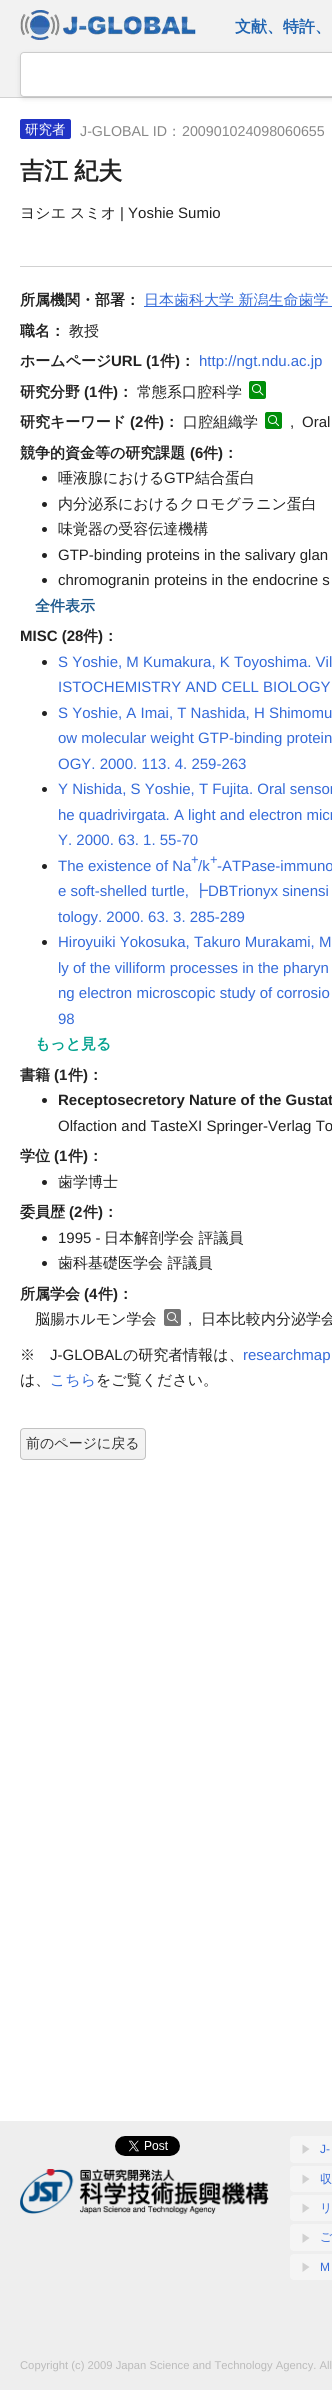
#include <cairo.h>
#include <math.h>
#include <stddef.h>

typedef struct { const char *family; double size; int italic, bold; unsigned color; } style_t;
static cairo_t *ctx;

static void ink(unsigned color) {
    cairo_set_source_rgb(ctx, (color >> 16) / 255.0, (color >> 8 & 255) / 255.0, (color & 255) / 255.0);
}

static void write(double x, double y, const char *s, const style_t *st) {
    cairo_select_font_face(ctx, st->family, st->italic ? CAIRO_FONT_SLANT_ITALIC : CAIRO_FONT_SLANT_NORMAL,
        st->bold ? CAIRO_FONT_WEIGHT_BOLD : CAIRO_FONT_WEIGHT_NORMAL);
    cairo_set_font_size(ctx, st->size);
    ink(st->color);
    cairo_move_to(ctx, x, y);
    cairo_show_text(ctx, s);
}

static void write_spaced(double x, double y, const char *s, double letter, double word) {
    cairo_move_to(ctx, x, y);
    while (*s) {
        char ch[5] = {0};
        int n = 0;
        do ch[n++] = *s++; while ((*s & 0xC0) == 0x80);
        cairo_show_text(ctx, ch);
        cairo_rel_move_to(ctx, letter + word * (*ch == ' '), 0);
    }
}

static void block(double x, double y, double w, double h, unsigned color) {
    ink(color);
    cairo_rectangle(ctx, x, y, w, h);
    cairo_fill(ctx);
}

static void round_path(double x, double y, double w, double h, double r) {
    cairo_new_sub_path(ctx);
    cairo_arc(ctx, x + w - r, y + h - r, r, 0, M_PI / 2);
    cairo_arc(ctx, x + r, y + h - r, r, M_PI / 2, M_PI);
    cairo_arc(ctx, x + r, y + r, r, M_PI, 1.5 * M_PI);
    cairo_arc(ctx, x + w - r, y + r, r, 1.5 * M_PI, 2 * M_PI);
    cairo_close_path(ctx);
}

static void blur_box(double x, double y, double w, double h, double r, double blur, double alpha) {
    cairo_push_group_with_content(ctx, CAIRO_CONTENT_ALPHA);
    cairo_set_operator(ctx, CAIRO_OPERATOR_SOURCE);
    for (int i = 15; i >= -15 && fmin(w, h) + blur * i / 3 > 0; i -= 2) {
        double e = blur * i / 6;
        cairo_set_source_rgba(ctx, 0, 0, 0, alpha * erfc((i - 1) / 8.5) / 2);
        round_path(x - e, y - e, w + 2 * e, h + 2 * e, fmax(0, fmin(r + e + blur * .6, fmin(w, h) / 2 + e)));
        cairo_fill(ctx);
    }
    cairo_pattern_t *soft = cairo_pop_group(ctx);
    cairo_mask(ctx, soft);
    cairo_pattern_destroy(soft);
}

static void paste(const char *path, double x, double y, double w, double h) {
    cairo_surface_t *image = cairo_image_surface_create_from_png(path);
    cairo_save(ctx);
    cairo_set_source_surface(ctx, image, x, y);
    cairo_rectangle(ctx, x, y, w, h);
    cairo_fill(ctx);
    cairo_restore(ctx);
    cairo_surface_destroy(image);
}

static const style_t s1 = {"WenQuanYi Zen Hei", 16, 0, 1, 0x2064b1};
static const style_t s2 = {"WenQuanYi Zen Hei Medium", 13.5, 0, 0, 0xffffff};
static const style_t s3 = {"Liberation Sans", 14.25, 0, 0, 0x888888};
static const style_t s4 = {"WenQuanYi Zen Hei Medium", 14.25, 0, 0, 0x888888};
static const style_t s5 = {"WenQuanYi Zen Hei Medium", 15, 0, 0, 0x222222};
static const style_t s6 = {"Liberation Sans", 15, 0, 0, 0x222222};
static const style_t s7 = {"WenQuanYi Zen Hei", 15, 0, 1, 0x222222};
static const style_t s8 = {"WenQuanYi Zen Hei Medium", 15, 0, 0, 0x346ad9};
static const style_t s9 = {"Liberation Sans", 15, 0, 1, 0x222222};
static const style_t s10 = {"Liberation Sans", 15, 0, 0, 0x346ad9};
static const style_t s11 = {"WenQuanYi Zen Hei", 15, 0, 1, 0x1e5a8e};
static const style_t s12 = {"Liberation Sans", 13, 0, 0, 0x346ad9};
static const style_t s13 = {"WenQuanYi Zen Hei", 15, 0, 1, 0x02a28f};
static const style_t s14 = {"WenQuanYi Zen Hei Medium", 14, 0, 0, 0x333333};
static const style_t s15 = {"Liberation Sans", 12, 0, 0, 0x346ad9};
static const style_t s16 = {"WenQuanYi Zen Hei Medium", 12, 0, 0, 0x346ad9};
static const style_t s17 = {"Liberation Sans", 11.25, 0, 0, 0xbbbbbb};

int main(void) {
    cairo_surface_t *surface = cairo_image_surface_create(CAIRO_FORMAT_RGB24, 332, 2390);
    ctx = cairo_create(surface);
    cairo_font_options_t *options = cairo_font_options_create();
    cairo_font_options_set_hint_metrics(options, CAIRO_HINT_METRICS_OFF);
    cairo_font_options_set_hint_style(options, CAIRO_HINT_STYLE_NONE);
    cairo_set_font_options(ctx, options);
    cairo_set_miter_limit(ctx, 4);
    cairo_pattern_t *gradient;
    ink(0xffffff);
    cairo_paint(ctx);
    block(0, 0, 332, 97, 0xf2f2f2);
    paste("pic1.png", 20, 10, 176, 30);
    write(235, 32, "文献、特許、", &s1);
    block(0, 97, 332, 1, 0xd1d1d1);
    ink(0x000000);
    blur_box(20, 54, 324, 45, 4, 2.5, 0.1);
    ink(0xffffff);
    round_path(20.5, 52.5, 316, 44, 3.5);
    cairo_fill_preserve(ctx);
    ink(0xcccccc);
    cairo_set_line_width(ctx, 1);
    cairo_stroke(ctx);
    cairo_save(ctx);
    round_path(21, 53, 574, 43, 3);
    cairo_clip(ctx);
    ink(0xffffff);
    round_path(21, 53, 301, 43, 4);
    cairo_fill(ctx);
    cairo_restore(ctx);
    block(20, 266, 312, 1, 0xd1d1d1);
    ink(0x2134c5);
    round_path(20, 119, 51, 20, 2);
    cairo_fill(ctx);
    write(25, 134, "研究者", &s2);
    write(80, 136, "J-GLOBAL ID", &s3);
    write(167, 136, "：", &s4);
    write(182, 136, "200901024098060655", &s3);
    cairo_select_font_face(ctx, "WenQuanYi Zen Hei", CAIRO_FONT_SLANT_NORMAL, CAIRO_FONT_WEIGHT_BOLD);
    cairo_set_font_size(ctx, 24);
    ink(0x222222);
    write_spaced(20, 179, "吉江 紀夫", 0, -1);
    write(20, 218, "ヨシエ", &s5);
    write(70, 218, "スミオ", &s5);
    write(120, 218, "| Yoshie Sumio", &s6);
    write(20, 305, "所属機関・部署：", &s7);
    block(144, 306, 188, 1, 0x346ad9);
    write(144, 305, "日本歯科大学 新潟生命歯学", &s8);
    write(20, 336, "職名：", &s7);
    write(69, 336, "教授", &s5);
    write(20, 366, "ホームページ", &s7);
    write(111, 366, "URL (1", &s9);
    write(160, 366, "件", &s7);
    write(175, 366, ")", &s9);
    write(180, 366, "：", &s7);
    write(199, 366, "http://ngt.ndu.ac.jp", &s10);
    write(20, 397, "研究分野", &s7);
    write(84, 397, "(1", &s9);
    write(98, 397, "件", &s7);
    write(113, 397, ")", &s9);
    write(118, 397, "：", &s7);
    write(137, 397, "常態系口腔科学", &s5);
    ink(0x008f0a);
    round_path(249, 381, 17, 18, 2);
    cairo_fill(ctx);
    cairo_arc(ctx, 256.5, 388.5, 4, 0, 2 * M_PI);
    ink(0xffffff);
    cairo_stroke(ctx);
    cairo_new_path(ctx);
    cairo_move_to(ctx, 259.5, 391.5);
    cairo_line_to(ctx, 263, 395);
    cairo_set_line_cap(ctx, CAIRO_LINE_CAP_ROUND);
    cairo_set_line_join(ctx, CAIRO_LINE_JOIN_ROUND);
    cairo_stroke(ctx);
    write(20, 427, "研究キーワード", &s7);
    write(130, 427, "(2", &s9);
    write(144, 427, "件", &s7);
    write(159, 427, ")", &s9);
    write(164, 427, "：", &s7);
    write(183, 427, "口腔組織学", &s5);
    ink(0x008f0a);
    round_path(265, 412, 17, 17, 2);
    cairo_fill(ctx);
    cairo_arc(ctx, 272.5, 419.5, 4, 0, 2 * M_PI);
    ink(0xffffff);
    cairo_set_line_cap(ctx, CAIRO_LINE_CAP_BUTT);
    cairo_set_line_join(ctx, CAIRO_LINE_JOIN_MITER);
    cairo_stroke(ctx);
    cairo_save(ctx);
    cairo_rectangle(ctx, 268, 415, 11, 11);
    cairo_clip(ctx);
    cairo_new_path(ctx);
    cairo_move_to(ctx, 275.5, 422.5);
    cairo_line_to(ctx, 279, 426);
    cairo_set_line_cap(ctx, CAIRO_LINE_CAP_ROUND);
    cairo_set_line_join(ctx, CAIRO_LINE_JOIN_ROUND);
    cairo_stroke(ctx);
    cairo_restore(ctx);
    write(290, 427, ",", &s6);
    write(302, 427, "Oral", &s6);
    write(20, 458, "競争的資金等の研究課題", &s7);
    write(190, 458, "(6", &s9);
    write(203, 458, "件", &s7);
    write(218, 458, ")", &s9);
    write(223, 458, "：", &s7);
    cairo_new_path(ctx);
    cairo_arc(ctx, 44.5, 478.5, 2.5, 0, 2 * M_PI);
    cairo_fill(ctx);
    write(58, 483, "唾液腺における", &s5);
    write(164, 483, "GTP", &s6);
    write(195, 483, "結合蛋白", &s5);
    cairo_new_path(ctx);
    cairo_arc(ctx, 44.5, 504.5, 2.5, 0, 2 * M_PI);
    cairo_fill(ctx);
    write(58, 509, "内分泌系におけるクロモグラニン蛋白", &s5);
    cairo_new_path(ctx);
    cairo_arc(ctx, 44.5, 529.5, 2.5, 0, 2 * M_PI);
    cairo_fill(ctx);
    write(58, 534, "味覚器の受容伝達機構", &s5);
    cairo_new_path(ctx);
    cairo_arc(ctx, 44.5, 555.5, 2.5, 0, 2 * M_PI);
    cairo_fill(ctx);
    write(58, 560, "GTP-binding proteins in the salivary glan", &s6);
    cairo_new_path(ctx);
    cairo_arc(ctx, 44.5, 580.5, 2.5, 0, 2 * M_PI);
    cairo_fill(ctx);
    write(58, 585, "chromogranin proteins in the endocrine s", &s6);
    write(35, 611, "全件表示", &s11);
    write(20, 641, "MISC (28", &s9);
    write(83, 641, "件", &s7);
    write(98, 641, ")", &s9);
    write(103, 641, "：", &s7);
    cairo_new_path(ctx);
    cairo_arc(ctx, 44.5, 662.5, 2.5, 0, 2 * M_PI);
    cairo_fill(ctx);
    write(58, 667, "S Yoshie, M Kumakura, K Toyoshima. Vil", &s10);
    write(58, 692, "ISTOCHEMISTRY AND CELL BIOLOGY", &s10);
    ink(0x222222);
    cairo_new_path(ctx);
    cairo_arc(ctx, 44.5, 713.5, 2.5, 0, 2 * M_PI);
    cairo_fill(ctx);
    write(58, 718, "S Yoshie, A Imai, T Nashida, H Shimomu", &s10);
    write(58, 743, "ow molecular weight GTP-binding protein", &s10);
    write(58, 769, "OGY. 2000. 113. 4. 259-263", &s10);
    ink(0x222222);
    cairo_new_path(ctx);
    cairo_arc(ctx, 44.5, 789.5, 2.5, 0, 2 * M_PI);
    cairo_fill(ctx);
    write(58, 794, "Y Nishida, S Yoshie, T Fujita. Oral sensor", &s10);
    write(58, 820, "he quadrivirgata. A light and electron micr", &s10);
    write(58, 845, "Y. 2000. 63. 1. 55-70", &s10);
    ink(0x222222);
    cairo_new_path(ctx);
    cairo_arc(ctx, 44.5, 866.5, 2.5, 0, 2 * M_PI);
    cairo_fill(ctx);
    write(58, 871, "The existence of Na", &s10);
    write(191, 864, "+", &s12);
    write(198, 871, "/k", &s10);
    write(210, 864, "+", &s12);
    write(217, 871, "-ATPase-immuno", &s10);
    write(58, 896, "e soft-shelled turtle,", &s10);
    write(193, 896, "┣", &s8);
    write(208, 896, "DBTrionyx sinensi", &s10);
    write(58, 922, "tology. 2000. 63. 3. 285-289", &s10);
    ink(0x222222);
    cairo_new_path(ctx);
    cairo_arc(ctx, 44.5, 942.5, 2.5, 0, 2 * M_PI);
    cairo_fill(ctx);
    write(58, 947, "Hiroyuiki Yokosuka, Takuro Murakami, M", &s10);
    write(58, 973, "ly of the villiform processes in the pharyn", &s10);
    write(58, 998, "ng electron microscopic study of corrosio", &s10);
    write(58, 1024, "98", &s10);
    write(35, 1049, "もっと見る", &s13);
    write(20, 1080, "書籍", &s7);
    write(54, 1080, "(1", &s9);
    write(68, 1080, "件", &s7);
    write(83, 1080, ")", &s9);
    write(88, 1080, "：", &s7);
    cairo_new_path(ctx);
    cairo_arc(ctx, 44.5, 1100.5, 2.5, 0, 2 * M_PI);
    cairo_fill(ctx);
    write(58, 1105, "Receptosecretory Nature of the Gustat", &s9);
    write(58, 1131, "Olfaction and TasteXI Springer-Verlag To", &s6);
    write(20, 1161, "学位", &s7);
    write(54, 1161, "(1", &s9);
    write(68, 1161, "件", &s7);
    write(83, 1161, ")", &s9);
    write(88, 1161, "：", &s7);
    cairo_new_path(ctx);
    cairo_arc(ctx, 44.5, 1182.5, 2.5, 0, 2 * M_PI);
    cairo_fill(ctx);
    write(58, 1187, "歯学博士", &s5);
    write(20, 1217, "委員歴", &s7);
    write(69, 1217, "(2", &s9);
    write(83, 1217, "件", &s7);
    write(98, 1217, ")", &s9);
    write(103, 1217, "：", &s7);
    cairo_new_path(ctx);
    cairo_arc(ctx, 44.5, 1238.5, 2.5, 0, 2 * M_PI);
    cairo_fill(ctx);
    write(58, 1243, "1995 -", &s6);
    write(104, 1243, "日本解剖学会 評議員", &s5);
    cairo_new_path(ctx);
    cairo_arc(ctx, 44.5, 1263.5, 2.5, 0, 2 * M_PI);
    cairo_fill(ctx);
    write(58, 1268, "歯科基礎医学会 評議員", &s5);
    write(20, 1299, "所属学会", &s7);
    write(84, 1299, "(4", &s9);
    write(98, 1299, "件", &s7);
    write(113, 1299, ")", &s9);
    write(118, 1299, "：", &s7);
    write(35, 1324, "脳腸ホルモン学会", &s5);
    ink(0x747474);
    round_path(164, 1309, 17, 17, 2);
    cairo_fill(ctx);
    cairo_arc(ctx, 171.5, 1316.5, 4, 0, 2 * M_PI);
    ink(0xffffff);
    cairo_stroke(ctx);
    cairo_save(ctx);
    cairo_rectangle(ctx, 167, 1312, 11, 11);
    cairo_clip(ctx);
    cairo_new_path(ctx);
    cairo_move_to(ctx, 174.5, 1319.5);
    cairo_line_to(ctx, 178, 1323);
    cairo_set_line_cap(ctx, CAIRO_LINE_CAP_ROUND);
    cairo_set_line_join(ctx, CAIRO_LINE_JOIN_ROUND);
    cairo_stroke(ctx);
    cairo_restore(ctx);
    write(188, 1324, ",", &s6);
    write(201, 1324, "日本比較内分泌学会", &s5);
    write(20, 1360, "※", &s5);
    write(50, 1360, "J-GLOBAL", &s6);
    write(123, 1360, "の研究者情報は、", &s5);
    write(243, 1360, "researchmap", &s10);
    write(20, 1385, "は、", &s5);
    write(50, 1385, "こちら", &s8);
    write(96, 1385, "をご覧ください。", &s5);
    cairo_save(ctx);
    round_path(20, 1428, 126, 32, 4);
    cairo_clip(ctx);
    gradient = cairo_pattern_create_linear(83, 1429, 83, 1459);
    cairo_pattern_add_color_stop_rgba(gradient, 0, 0.961, 0.961, 0.961, 1);
    cairo_pattern_add_color_stop_rgba(gradient, 1, 0.945, 0.945, 0.945, 1);
    cairo_set_source(ctx, gradient);
    cairo_pattern_destroy(gradient);
    cairo_rectangle(ctx, 20, 1429, 126, 30);
    cairo_fill(ctx);
    cairo_restore(ctx);
    round_path(20.5, 1428.5, 125, 31, 3.5);
    ink(0xc2c2c2);
    cairo_stroke(ctx);
    write(26, 1448, "前のページに戻る", &s14);
    block(0, 2121, 332, 269, 0xeeeeee);
    paste("pic2.png", 115, 2136, 65, 20);
    paste("pic3.png", 20, 2169, 249, 45);
    ink(0xf5f5f5);
    round_path(290, 2136, 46, 27, 4);
    cairo_fill(ctx);
    ink(0xd1d1d1);
    cairo_new_path(ctx);
    cairo_move_to(ctx, 302.5, 2144.5);
    cairo_line_to(ctx, 309.5, 2149);
    cairo_line_to(ctx, 302.5, 2154);
    cairo_close_path(ctx);
    cairo_fill(ctx);
    write(320, 2153, "J-", &s15);
    ink(0xf5f5f5);
    round_path(290, 2166, 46, 26, 4);
    cairo_fill(ctx);
    ink(0xd1d1d1);
    cairo_new_path(ctx);
    cairo_move_to(ctx, 302.5, 2174.5);
    cairo_line_to(ctx, 309.5, 2179);
    cairo_line_to(ctx, 302.5, 2184);
    cairo_close_path(ctx);
    cairo_fill(ctx);
    write(320, 2183, "収", &s16);
    ink(0xf5f5f5);
    round_path(290, 2195, 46, 26, 4);
    cairo_fill(ctx);
    ink(0xd1d1d1);
    cairo_new_path(ctx);
    cairo_move_to(ctx, 302.5, 2203.5);
    cairo_line_to(ctx, 309.5, 2208);
    cairo_line_to(ctx, 302.5, 2213);
    cairo_close_path(ctx);
    cairo_fill(ctx);
    write(320, 2212, "リ", &s16);
    ink(0xf5f5f5);
    round_path(290, 2224, 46, 27, 4);
    cairo_fill(ctx);
    ink(0xd1d1d1);
    cairo_new_path(ctx);
    cairo_move_to(ctx, 302.5, 2233.5);
    cairo_line_to(ctx, 309.5, 2238);
    cairo_line_to(ctx, 302.5, 2243);
    cairo_close_path(ctx);
    cairo_fill(ctx);
    write(320, 2241, "ご", &s16);
    ink(0xf5f5f5);
    round_path(290, 2254, 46, 26, 4);
    cairo_fill(ctx);
    ink(0xd1d1d1);
    cairo_new_path(ctx);
    cairo_move_to(ctx, 302.5, 2262.5);
    cairo_line_to(ctx, 309.5, 2267);
    cairo_line_to(ctx, 302.5, 2272);
    cairo_close_path(ctx);
    cairo_fill(ctx);
    write(320, 2271, "M", &s15);
    write(20, 2369, "Copyright (c) 2009 Japan Science and Technology Agency. All", &s17);
    cairo_surface_write_to_png(surface, "screenshot.png");
    cairo_font_options_destroy(options);
    cairo_destroy(ctx);
    cairo_surface_destroy(surface);
    return 0;
}
